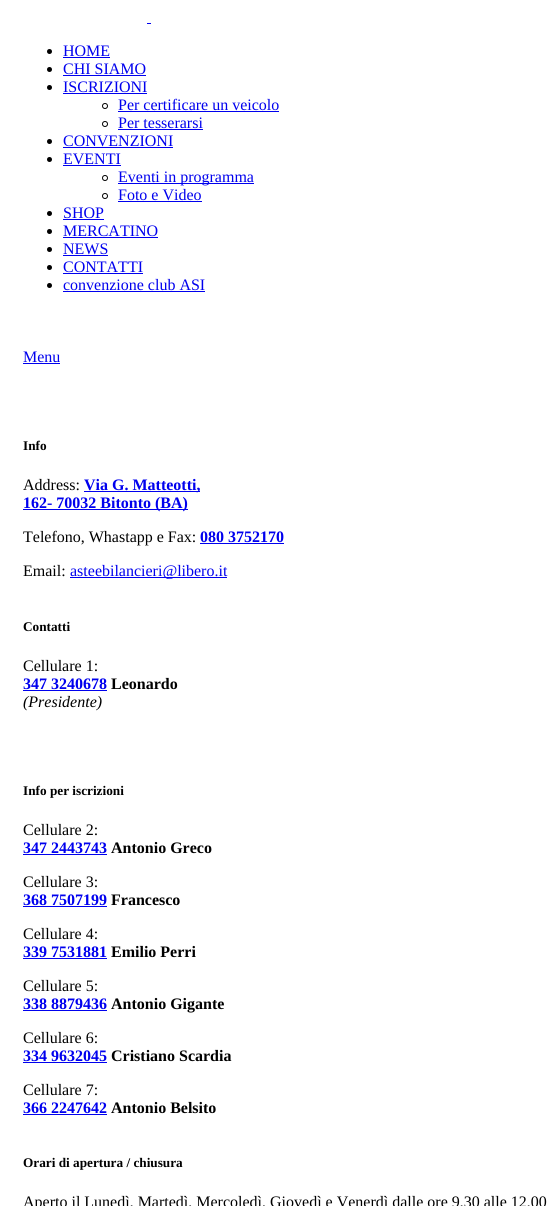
#include <cairo.h>
#include <math.h>
#include <stddef.h>

typedef struct { const char *family; double size; int italic, bold; unsigned color; } style_t;
static cairo_t *ctx;

static void ink(unsigned color) {
    cairo_set_source_rgb(ctx, (color >> 16) / 255.0, (color >> 8 & 255) / 255.0, (color & 255) / 255.0);
}

static void write(double x, double y, const char *s, const style_t *st) {
    cairo_select_font_face(ctx, st->family, st->italic ? CAIRO_FONT_SLANT_ITALIC : CAIRO_FONT_SLANT_NORMAL,
        st->bold ? CAIRO_FONT_WEIGHT_BOLD : CAIRO_FONT_WEIGHT_NORMAL);
    cairo_set_font_size(ctx, st->size);
    ink(st->color);
    cairo_move_to(ctx, x, y);
    cairo_show_text(ctx, s);
}

static void block(double x, double y, double w, double h, unsigned color) {
    ink(color);
    cairo_rectangle(ctx, x, y, w, h);
    cairo_fill(ctx);
}

static const style_t s1 = {"Liberation Serif", 16, 0, 0, 0x0000ee};
static const style_t s2 = {"Liberation Serif", 13.25, 0, 1, 0x000000};
static const style_t s3 = {"Liberation Serif", 16, 0, 0, 0x000000};
static const style_t s4 = {"Liberation Serif", 16, 0, 1, 0x0000ee};
static const style_t s5 = {"Liberation Serif", 16, 0, 1, 0x000000};
static const style_t s6 = {"Liberation Serif", 16, 1, 0, 0x000000};

int main(void) {
    cairo_surface_t *surface = cairo_image_surface_create(CAIRO_FORMAT_RGB24, 548, 1206);
    ctx = cairo_create(surface);
    cairo_font_options_t *options = cairo_font_options_create();
    cairo_font_options_set_hint_metrics(options, CAIRO_HINT_METRICS_OFF);
    cairo_font_options_set_hint_style(options, CAIRO_HINT_STYLE_NONE);
    cairo_set_font_options(ctx, options);
    cairo_set_miter_limit(ctx, 4);
    ink(0xffffff);
    cairo_paint(ctx);
    block(147, 23, 4, 1, 0x0000ee);
    ink(0x000000);
    cairo_arc(ctx, 49.5, 51.5, 2.5, 0, 2 * M_PI);
    cairo_fill(ctx);
    write(63, 56, "HOME", &s1);
    block(63, 57, 47, 1, 0x0000ee);
    ink(0x000000);
    cairo_new_path(ctx);
    cairo_arc(ctx, 49.5, 69.5, 2.5, 0, 2 * M_PI);
    cairo_fill(ctx);
    write(63, 74, "CHI SIAMO", &s1);
    block(63, 75, 83, 1, 0x0000ee);
    ink(0x000000);
    cairo_new_path(ctx);
    cairo_arc(ctx, 49.5, 87.5, 2.5, 0, 2 * M_PI);
    cairo_fill(ctx);
    write(63, 92, "ISCRIZIONI", &s1);
    block(63, 93, 84, 1, 0x0000ee);
    cairo_new_path(ctx);
    cairo_arc(ctx, 105, 106, 2.5, 0, 2 * M_PI);
    ink(0x000000);
    cairo_set_line_width(ctx, 1);
    cairo_stroke(ctx);
    write(118, 110, "Per certificare un veicolo", &s1);
    block(118, 111, 161, 1, 0x0000ee);
    cairo_new_path(ctx);
    cairo_arc(ctx, 105, 124, 2.5, 0, 2 * M_PI);
    ink(0x000000);
    cairo_stroke(ctx);
    write(118, 128, "Per tesserarsi", &s1);
    block(118, 129, 85, 1, 0x0000ee);
    ink(0x000000);
    cairo_new_path(ctx);
    cairo_arc(ctx, 49.5, 141.5, 2.5, 0, 2 * M_PI);
    cairo_fill(ctx);
    write(63, 146, "CONVENZIONI", &s1);
    block(63, 147, 110, 1, 0x0000ee);
    ink(0x000000);
    cairo_new_path(ctx);
    cairo_arc(ctx, 49.5, 159.5, 2.5, 0, 2 * M_PI);
    cairo_fill(ctx);
    write(63, 164, "EVENTI", &s1);
    block(63, 165, 58, 1, 0x0000ee);
    cairo_new_path(ctx);
    cairo_arc(ctx, 105, 178, 2.5, 0, 2 * M_PI);
    ink(0x000000);
    cairo_stroke(ctx);
    block(118, 183, 136, 1, 0x0000ee);
    write(118, 182, "Eventi in programma", &s1);
    cairo_new_path(ctx);
    cairo_arc(ctx, 105, 196, 2.5, 0, 2 * M_PI);
    ink(0x000000);
    cairo_stroke(ctx);
    write(118, 200, "Foto e Video", &s1);
    block(118, 201, 84, 1, 0x0000ee);
    ink(0x000000);
    cairo_new_path(ctx);
    cairo_arc(ctx, 49.5, 213.5, 2.5, 0, 2 * M_PI);
    cairo_fill(ctx);
    write(63, 218, "SHOP", &s1);
    block(63, 219, 41, 1, 0x0000ee);
    ink(0x000000);
    cairo_new_path(ctx);
    cairo_arc(ctx, 49.5, 231.5, 2.5, 0, 2 * M_PI);
    cairo_fill(ctx);
    write(63, 236, "MERCATINO", &s1);
    block(63, 237, 95, 1, 0x0000ee);
    ink(0x000000);
    cairo_new_path(ctx);
    cairo_arc(ctx, 49.5, 249.5, 2.5, 0, 2 * M_PI);
    cairo_fill(ctx);
    write(63, 254, "NEWS", &s1);
    block(63, 255, 45, 1, 0x0000ee);
    ink(0x000000);
    cairo_new_path(ctx);
    cairo_arc(ctx, 49.5, 267.5, 2.5, 0, 2 * M_PI);
    cairo_fill(ctx);
    write(63, 272, "CONTATTI", &s1);
    block(63, 273, 80, 1, 0x0000ee);
    ink(0x000000);
    cairo_new_path(ctx);
    cairo_arc(ctx, 49.5, 285.5, 2.5, 0, 2 * M_PI);
    cairo_fill(ctx);
    write(63, 290, "convenzione club ASI", &s1);
    block(63, 291, 142, 1, 0x0000ee);
    write(23, 362, "Menu", &s1);
    block(23, 363, 37, 1, 0x0000ee);
    write(23, 450, "Info", &s2);
    write(23, 490, "Address:", &s3);
    block(84, 491, 116, 1, 0x0000ee);
    write(84, 490, "Via G. Matteotti,", &s4);
    block(23, 509, 165, 1, 0x0000ee);
    write(23, 508, "162- 70032 Bitonto (BA)", &s4);
    write(23, 542, "Telefono, Whastapp e Fax:", &s3);
    write(200, 542, "080 3752170", &s4);
    block(200, 543, 84, 1, 0x0000ee);
    write(23, 576, "Email:", &s3);
    block(70, 577, 157, 1, 0x0000ee);
    write(70, 576, "asteebilancieri@libero.it", &s1);
    write(23, 631, "Contatti", &s2);
    write(23, 671, "Cellulare 1:", &s3);
    write(23, 689, "347 3240678", &s4);
    block(23, 690, 84, 1, 0x0000ee);
    write(111, 689, "Leonardo", &s5);
    write(23, 707, "(Presidente)", &s6);
    write(23, 795, "Info per iscrizioni", &s2);
    write(23, 835, "Cellulare 2:", &s3);
    write(23, 853, "347 2443743", &s4);
    block(23, 854, 84, 1, 0x0000ee);
    write(111, 853, "Antonio Greco", &s5);
    write(23, 887, "Cellulare 3:", &s3);
    write(23, 905, "368 7507199", &s4);
    block(23, 906, 84, 1, 0x0000ee);
    write(111, 905, "Francesco", &s5);
    write(23, 939, "Cellulare 4:", &s3);
    write(23, 957, "339 7531881", &s4);
    block(23, 958, 84, 1, 0x0000ee);
    write(111, 957, "Emilio Perri", &s5);
    write(23, 991, "Cellulare 5:", &s3);
    write(23, 1009, "338 8879436", &s4);
    block(23, 1010, 84, 1, 0x0000ee);
    write(111, 1009, "Antonio Gigante", &s5);
    write(23, 1043, "Cellulare 6:", &s3);
    write(23, 1061, "334 9632045", &s4);
    block(23, 1062, 84, 1, 0x0000ee);
    write(111, 1061, "Cristiano Scardia", &s5);
    write(23, 1095, "Cellulare 7:", &s3);
    write(23, 1113, "366 2247642", &s4);
    block(23, 1114, 84, 1, 0x0000ee);
    write(111, 1113, "Antonio Belsito", &s5);
    write(23, 1167, "Orari di apertura / chiusura", &s2);
    write(23, 1207, "Aperto il Lunedì, Martedì, Mercoledì, Giovedì e Venerdì dalle ore 9,30 alle 12,00", &s3);
    cairo_surface_write_to_png(surface, "screenshot.png");
    cairo_font_options_destroy(options);
    cairo_destroy(ctx);
    cairo_surface_destroy(surface);
    return 0;
}
